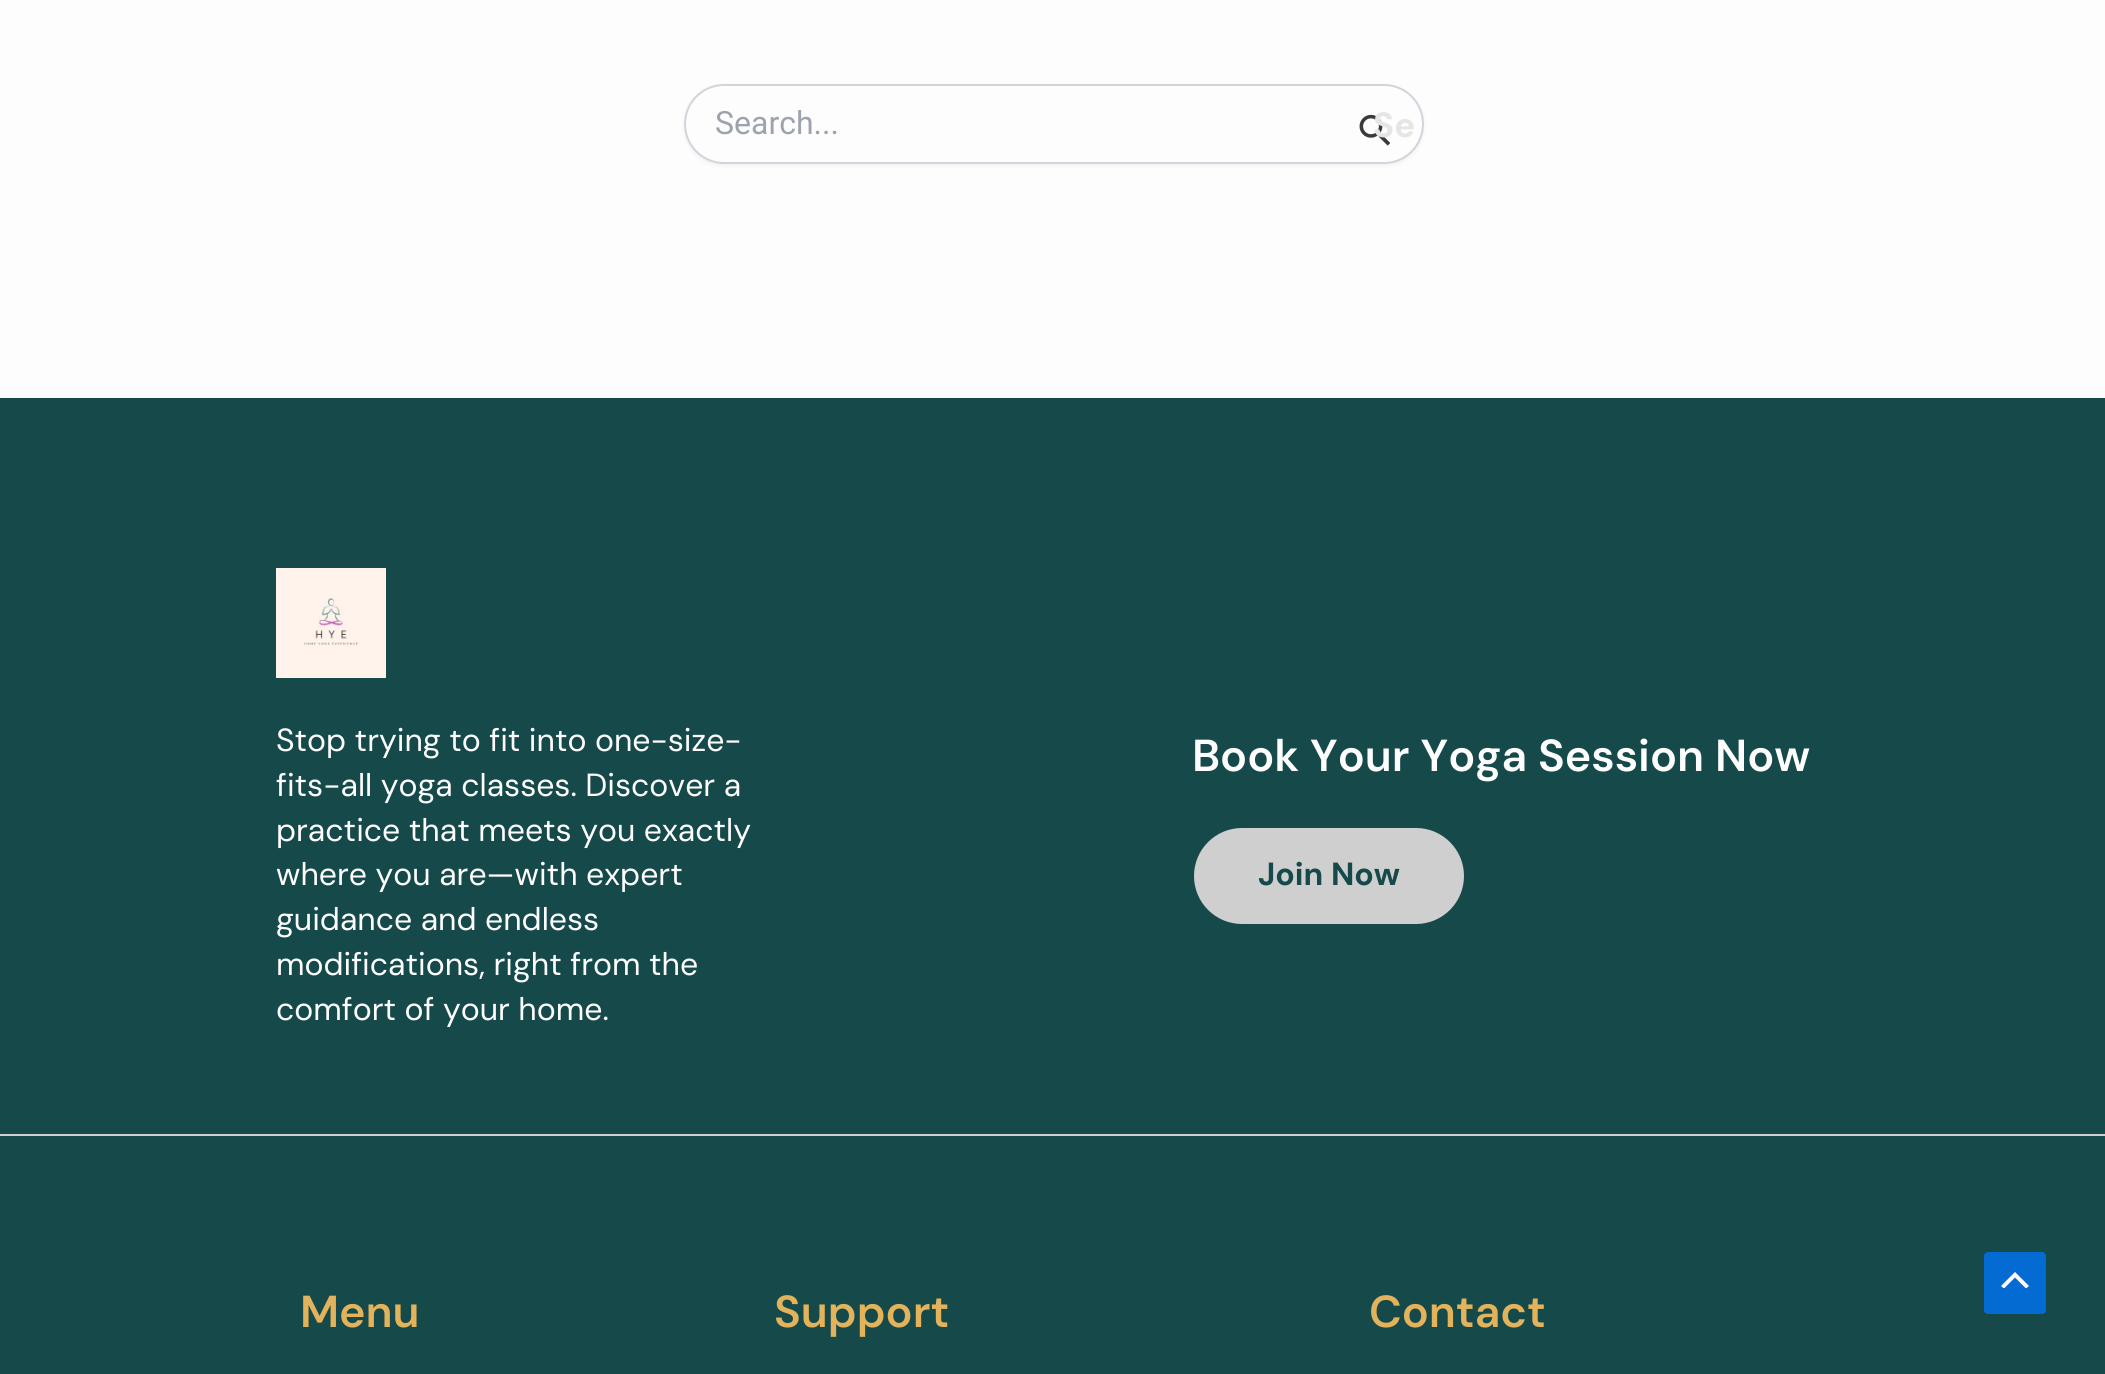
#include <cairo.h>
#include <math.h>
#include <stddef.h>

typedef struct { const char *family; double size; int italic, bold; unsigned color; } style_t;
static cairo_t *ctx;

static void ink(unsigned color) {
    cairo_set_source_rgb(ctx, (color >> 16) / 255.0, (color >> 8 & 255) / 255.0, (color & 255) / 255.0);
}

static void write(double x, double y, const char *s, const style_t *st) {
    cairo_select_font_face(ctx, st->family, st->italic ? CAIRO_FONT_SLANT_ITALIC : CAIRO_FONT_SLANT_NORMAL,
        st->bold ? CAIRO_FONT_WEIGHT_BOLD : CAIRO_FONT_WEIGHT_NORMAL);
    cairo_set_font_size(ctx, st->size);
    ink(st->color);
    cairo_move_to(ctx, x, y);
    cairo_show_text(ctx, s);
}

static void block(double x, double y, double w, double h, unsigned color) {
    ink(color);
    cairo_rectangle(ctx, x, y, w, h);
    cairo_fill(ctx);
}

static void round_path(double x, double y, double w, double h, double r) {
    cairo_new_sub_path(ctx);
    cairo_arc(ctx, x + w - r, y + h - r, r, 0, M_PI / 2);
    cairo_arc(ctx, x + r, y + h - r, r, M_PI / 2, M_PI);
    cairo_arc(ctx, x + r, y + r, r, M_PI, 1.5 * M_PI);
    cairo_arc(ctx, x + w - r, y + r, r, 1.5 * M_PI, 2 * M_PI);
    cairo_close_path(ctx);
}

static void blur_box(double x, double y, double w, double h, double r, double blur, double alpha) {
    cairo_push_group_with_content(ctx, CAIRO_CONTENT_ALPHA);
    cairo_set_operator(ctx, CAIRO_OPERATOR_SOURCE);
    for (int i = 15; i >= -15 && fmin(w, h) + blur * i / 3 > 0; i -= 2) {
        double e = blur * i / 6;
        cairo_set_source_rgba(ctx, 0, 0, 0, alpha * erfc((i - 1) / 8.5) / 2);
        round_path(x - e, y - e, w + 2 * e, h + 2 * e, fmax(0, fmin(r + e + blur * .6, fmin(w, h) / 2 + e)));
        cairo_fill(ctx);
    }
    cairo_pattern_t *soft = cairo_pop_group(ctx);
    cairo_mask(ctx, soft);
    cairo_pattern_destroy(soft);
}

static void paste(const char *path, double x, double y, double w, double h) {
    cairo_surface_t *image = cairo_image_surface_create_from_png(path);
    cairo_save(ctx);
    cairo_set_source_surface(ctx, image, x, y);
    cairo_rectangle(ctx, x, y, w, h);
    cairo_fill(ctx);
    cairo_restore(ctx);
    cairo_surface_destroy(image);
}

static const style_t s1 = {"Roboto", 32, 0, 0, 0x9ca3af};
static const style_t s2 = {"DM Sans", 35, 0, 1, 0xe5e5e6};
static const style_t s3 = {"DM Sans", 32, 0, 0, 0xfdfdfd};
static const style_t s4 = {"DM Sans SemiBold", 44.75, 0, 0, 0xfdfdfd};
static const style_t s5 = {"DM Sans", 32, 0, 1, 0x16494a};
static const style_t s6 = {"DM Sans SemiBold", 44.75, 0, 0, 0xe2b35b};

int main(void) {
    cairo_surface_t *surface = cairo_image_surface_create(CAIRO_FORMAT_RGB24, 2105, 1374);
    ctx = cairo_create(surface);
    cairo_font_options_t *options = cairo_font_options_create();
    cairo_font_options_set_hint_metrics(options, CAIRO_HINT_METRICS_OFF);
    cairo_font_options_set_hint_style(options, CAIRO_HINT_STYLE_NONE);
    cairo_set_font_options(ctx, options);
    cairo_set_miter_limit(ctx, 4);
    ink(0xfdfdfd);
    cairo_paint(ctx);
    ink(0x000000);
    blur_box(684, 86, 740, 80, 40, 2, 0.05);
    ink(0xfdfdfd);
    round_path(685, 85, 738, 78, 39);
    cairo_fill_preserve(ctx);
    ink(0xd1d5db);
    cairo_stroke(ctx);
    write(715, 134, "Search...", &s1);
    paste("pic1.png", 1359, 114, 31, 32);
    write(1373, 137, "Se", &s2);
    block(0, 398, 2105, 976, 0x16494a);
    paste("pic2.png", 276, 568, 110, 110);
    write(276, 751, "Stop trying to fit into one-size-", &s3);
    write(276, 796, "fits-all yoga classes. Discover a", &s3);
    write(276, 841, "practice that meets you exactly", &s3);
    write(276, 885, "where you are—with expert", &s3);
    write(276, 930, "guidance and endless", &s3);
    write(276, 975, "modifications, right from the", &s3);
    write(276, 1020, "comfort of your home.", &s3);
    write(1192, 771, "Book Your Yoga Session Now", &s4);
    ink(0xcfcfcf);
    round_path(1193, 827, 272, 98, 49);
    cairo_fill_preserve(ctx);
    ink(0x16494a);
    cairo_stroke(ctx);
    write(1258, 885, "Join Now", &s5);
    block(0, 1134, 2105, 2, 0xcfcfcf);
    write(300, 1327, "Menu", &s6);
    write(774, 1327, "Support", &s6);
    write(1369, 1327, "Contact", &s6);
    ink(0x046bd2);
    round_path(1984, 1252, 62, 62, 4);
    cairo_fill(ctx);
    cairo_save(ctx);
    cairo_rectangle(ctx, 1990, 1270, 48, 18);
    cairo_clip(ctx);
    ink(0xffffff);
    cairo_new_path(ctx);
    cairo_move_to(ctx, 2029, 1286);
    cairo_line_to(ctx, 2015, 1272);
    cairo_line_to(ctx, 2001, 1286);
    cairo_line_to(ctx, 2004, 1288.5);
    cairo_line_to(ctx, 2015, 1277.5);
    cairo_line_to(ctx, 2026, 1288.5);
    cairo_close_path(ctx);
    cairo_fill(ctx);
    cairo_restore(ctx);
    cairo_surface_write_to_png(surface, "screenshot.png");
    cairo_font_options_destroy(options);
    cairo_destroy(ctx);
    cairo_surface_destroy(surface);
    return 0;
}
